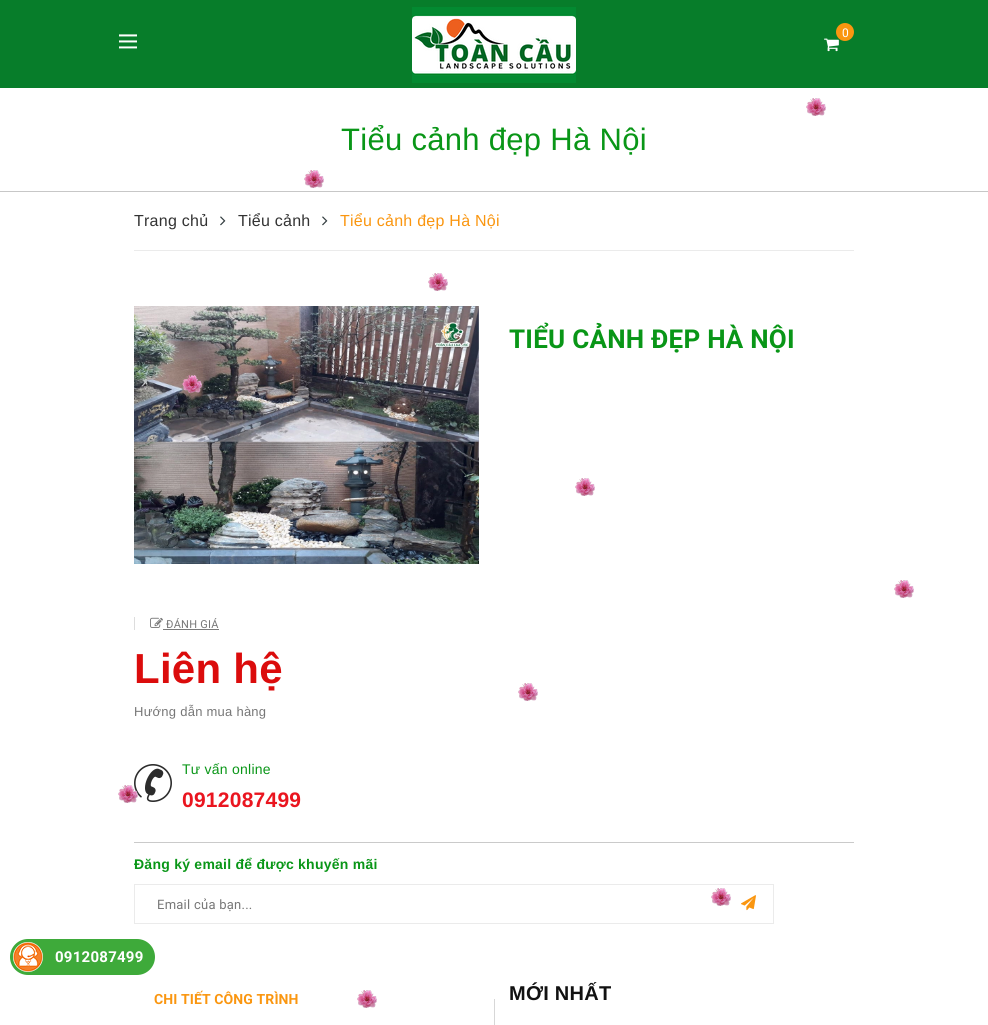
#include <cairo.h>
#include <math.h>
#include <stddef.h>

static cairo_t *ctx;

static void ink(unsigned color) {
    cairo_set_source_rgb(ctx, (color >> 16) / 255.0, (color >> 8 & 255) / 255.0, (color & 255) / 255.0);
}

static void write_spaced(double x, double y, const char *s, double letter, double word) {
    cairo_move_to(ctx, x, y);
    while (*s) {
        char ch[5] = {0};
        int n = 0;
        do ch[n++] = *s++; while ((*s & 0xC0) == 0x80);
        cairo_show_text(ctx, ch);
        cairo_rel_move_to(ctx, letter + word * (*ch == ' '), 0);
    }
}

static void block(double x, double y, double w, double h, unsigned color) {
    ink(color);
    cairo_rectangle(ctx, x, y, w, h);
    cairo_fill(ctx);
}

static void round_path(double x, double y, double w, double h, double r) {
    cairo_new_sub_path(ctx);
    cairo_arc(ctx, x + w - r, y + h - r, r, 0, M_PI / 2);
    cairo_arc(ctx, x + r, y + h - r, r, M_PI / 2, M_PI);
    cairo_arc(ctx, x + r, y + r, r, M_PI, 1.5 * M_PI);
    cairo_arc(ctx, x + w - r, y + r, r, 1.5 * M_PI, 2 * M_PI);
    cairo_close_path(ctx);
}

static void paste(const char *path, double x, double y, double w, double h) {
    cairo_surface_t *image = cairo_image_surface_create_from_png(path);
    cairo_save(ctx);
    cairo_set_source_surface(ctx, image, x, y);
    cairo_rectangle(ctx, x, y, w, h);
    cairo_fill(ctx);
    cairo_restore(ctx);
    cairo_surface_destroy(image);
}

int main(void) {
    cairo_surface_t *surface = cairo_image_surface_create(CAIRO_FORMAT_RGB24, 988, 1025);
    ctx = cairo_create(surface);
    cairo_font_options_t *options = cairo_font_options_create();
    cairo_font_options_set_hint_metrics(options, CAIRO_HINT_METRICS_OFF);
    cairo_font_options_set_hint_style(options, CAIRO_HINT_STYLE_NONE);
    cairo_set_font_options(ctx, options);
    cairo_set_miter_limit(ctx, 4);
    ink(0xffffff);
    cairo_paint(ctx);
    block(0, 0, 988, 88, 0x077d2a);
    paste("pic1.png", 412, 7, 164, 76);
    paste("pic2.png", 824, 38, 15, 14);
    ink(0xfa9610);
    cairo_arc(ctx, 845, 32, 9, 0, 2 * M_PI);
    cairo_fill(ctx);
    cairo_select_font_face(ctx, "Roboto", CAIRO_FONT_SLANT_NORMAL, CAIRO_FONT_WEIGHT_NORMAL);
    cairo_set_font_size(ctx, 12);
    ink(0xffffff);
    write_spaced(842, 37, "0", 0.25, 0);
    paste("pic3.png", 119, 34, 18, 15);
    paste("pic4.png", 806, 98, 20, 18);
    block(0, 191, 988, 1, 0xc7c7c7);
    cairo_select_font_face(ctx, "Liberation Sans", CAIRO_FONT_SLANT_NORMAL, CAIRO_FONT_WEIGHT_NORMAL);
    cairo_set_font_size(ctx, 31);
    ink(0x099617);
    write_spaced(341, 150, "Tiểu cảnh đẹp Hà Nội", 0.3, 0);
    block(134, 250, 720, 1, 0xebebeb);
    cairo_set_font_size(ctx, 16);
    ink(0x333333);
    write_spaced(134, 226, "Trang chủ", 0.25, 0);
    paste("pic5.png", 220, 216, 6, 10);
    write_spaced(238, 226, "Tiểu cảnh", 0.25, 0);
    paste("pic5.png", 322, 216, 6, 10);
    ink(0xfa9610);
    write_spaced(340, 226, "Tiểu cảnh đẹp Hà Nội", 0.25, 0);
    paste("pic4.png", 304, 170, 20, 18);
    paste("pic4.png", 428, 273, 20, 18);
    paste("pic6.png", 134, 306, 345, 258);
    cairo_select_font_face(ctx, "Roboto", CAIRO_FONT_SLANT_NORMAL, CAIRO_FONT_WEIGHT_BOLD);
    cairo_set_font_size(ctx, 26);
    ink(0x099617);
    write_spaced(509, 348, "TIỂU CẢNH ĐẸP HÀ NỘI", 0.25, 0);
    block(134, 617, 1, 13, 0xdddddd);
    paste("pic7.png", 150, 617, 13, 11);
    cairo_select_font_face(ctx, "Roboto", CAIRO_FONT_SLANT_NORMAL, CAIRO_FONT_WEIGHT_NORMAL);
    cairo_set_font_size(ctx, 11);
    ink(0x777777);
    write_spaced(166, 628, "ĐÁNH GIÁ", 0.25, 0);
    block(163, 629, 56, 1, 0x7b7b7b);
    cairo_select_font_face(ctx, "Liberation Sans", CAIRO_FONT_SLANT_NORMAL, CAIRO_FONT_WEIGHT_BOLD);
    cairo_set_font_size(ctx, 42);
    ink(0xdb0c0c);
    write_spaced(134, 683, "Liên hệ", 0.25, 0);
    cairo_select_font_face(ctx, "Liberation Sans", CAIRO_FONT_SLANT_NORMAL, CAIRO_FONT_WEIGHT_NORMAL);
    cairo_set_font_size(ctx, 13);
    ink(0x777777);
    write_spaced(134, 716, "Hướng dẫn mua hàng", 0.25, 0);
    paste("pic8.png", 134, 764, 38, 38);
    cairo_set_font_size(ctx, 14);
    ink(0x099617);
    write_spaced(182, 774, "Tư vấn online", 0.25, 0);
    cairo_select_font_face(ctx, "Liberation Sans", CAIRO_FONT_SLANT_NORMAL, CAIRO_FONT_WEIGHT_BOLD);
    cairo_set_font_size(ctx, 21);
    ink(0xea151f);
    write_spaced(182, 807, "0912087499", 0.25, 0);
    block(134, 842, 720, 1, 0xcacaca);
    cairo_set_font_size(ctx, 14);
    ink(0x099617);
    write_spaced(134, 869, "Đăng ký email để được khuyến mãi", 0.25, 0);
    cairo_rectangle(ctx, 134.5, 884.5, 639, 39);
    ink(0xebebeb);
    cairo_set_line_width(ctx, 1);
    cairo_stroke(ctx);
    cairo_select_font_face(ctx, "Roboto", CAIRO_FONT_SLANT_NORMAL, CAIRO_FONT_WEIGHT_NORMAL);
    cairo_set_font_size(ctx, 13);
    ink(0x777777);
    write_spaced(157, 909, "Email của bạn...", 0.25, 0);
    paste("pic9.png", 741, 895, 15, 16);
    cairo_select_font_face(ctx, "Roboto", CAIRO_FONT_SLANT_NORMAL, CAIRO_FONT_WEIGHT_BOLD);
    cairo_set_font_size(ctx, 14);
    ink(0xfa9610);
    write_spaced(154, 1004, "CHI TIẾT CÔNG TRÌNH", 0.1, 0);
    cairo_select_font_face(ctx, "Liberation Sans", CAIRO_FONT_SLANT_NORMAL, CAIRO_FONT_WEIGHT_BOLD);
    cairo_set_font_size(ctx, 20);
    ink(0x111111);
    write_spaced(509, 1000, "MỚI NHẤT", 0.25, 0);
    block(494, 999, 1, 26, 0xd7d7d7);
    paste("pic10.png", 182, 375, 20, 18);
    paste("pic4.png", 575, 478, 20, 18);
    paste("pic4.png", 894, 580, 20, 18);
    paste("pic4.png", 518, 683, 20, 18);
    paste("pic11.png", 118, 785, 20, 18);
    paste("pic4.png", 711, 888, 20, 18);
    ink(0x3eaa3a);
    round_path(10, 939, 145, 36, 18);
    cairo_fill(ctx);
    paste("pic12.png", 13, 942, 30, 30);
    cairo_select_font_face(ctx, "Roboto", CAIRO_FONT_SLANT_NORMAL, CAIRO_FONT_WEIGHT_BOLD);
    cairo_set_font_size(ctx, 15);
    ink(0xffffff);
    write_spaced(55, 962, "0912087499", 0.25, 0);
    paste("pic4.png", 357, 990, 20, 18);
    cairo_surface_write_to_png(surface, "screenshot.png");
    cairo_font_options_destroy(options);
    cairo_destroy(ctx);
    cairo_surface_destroy(surface);
    return 0;
}
